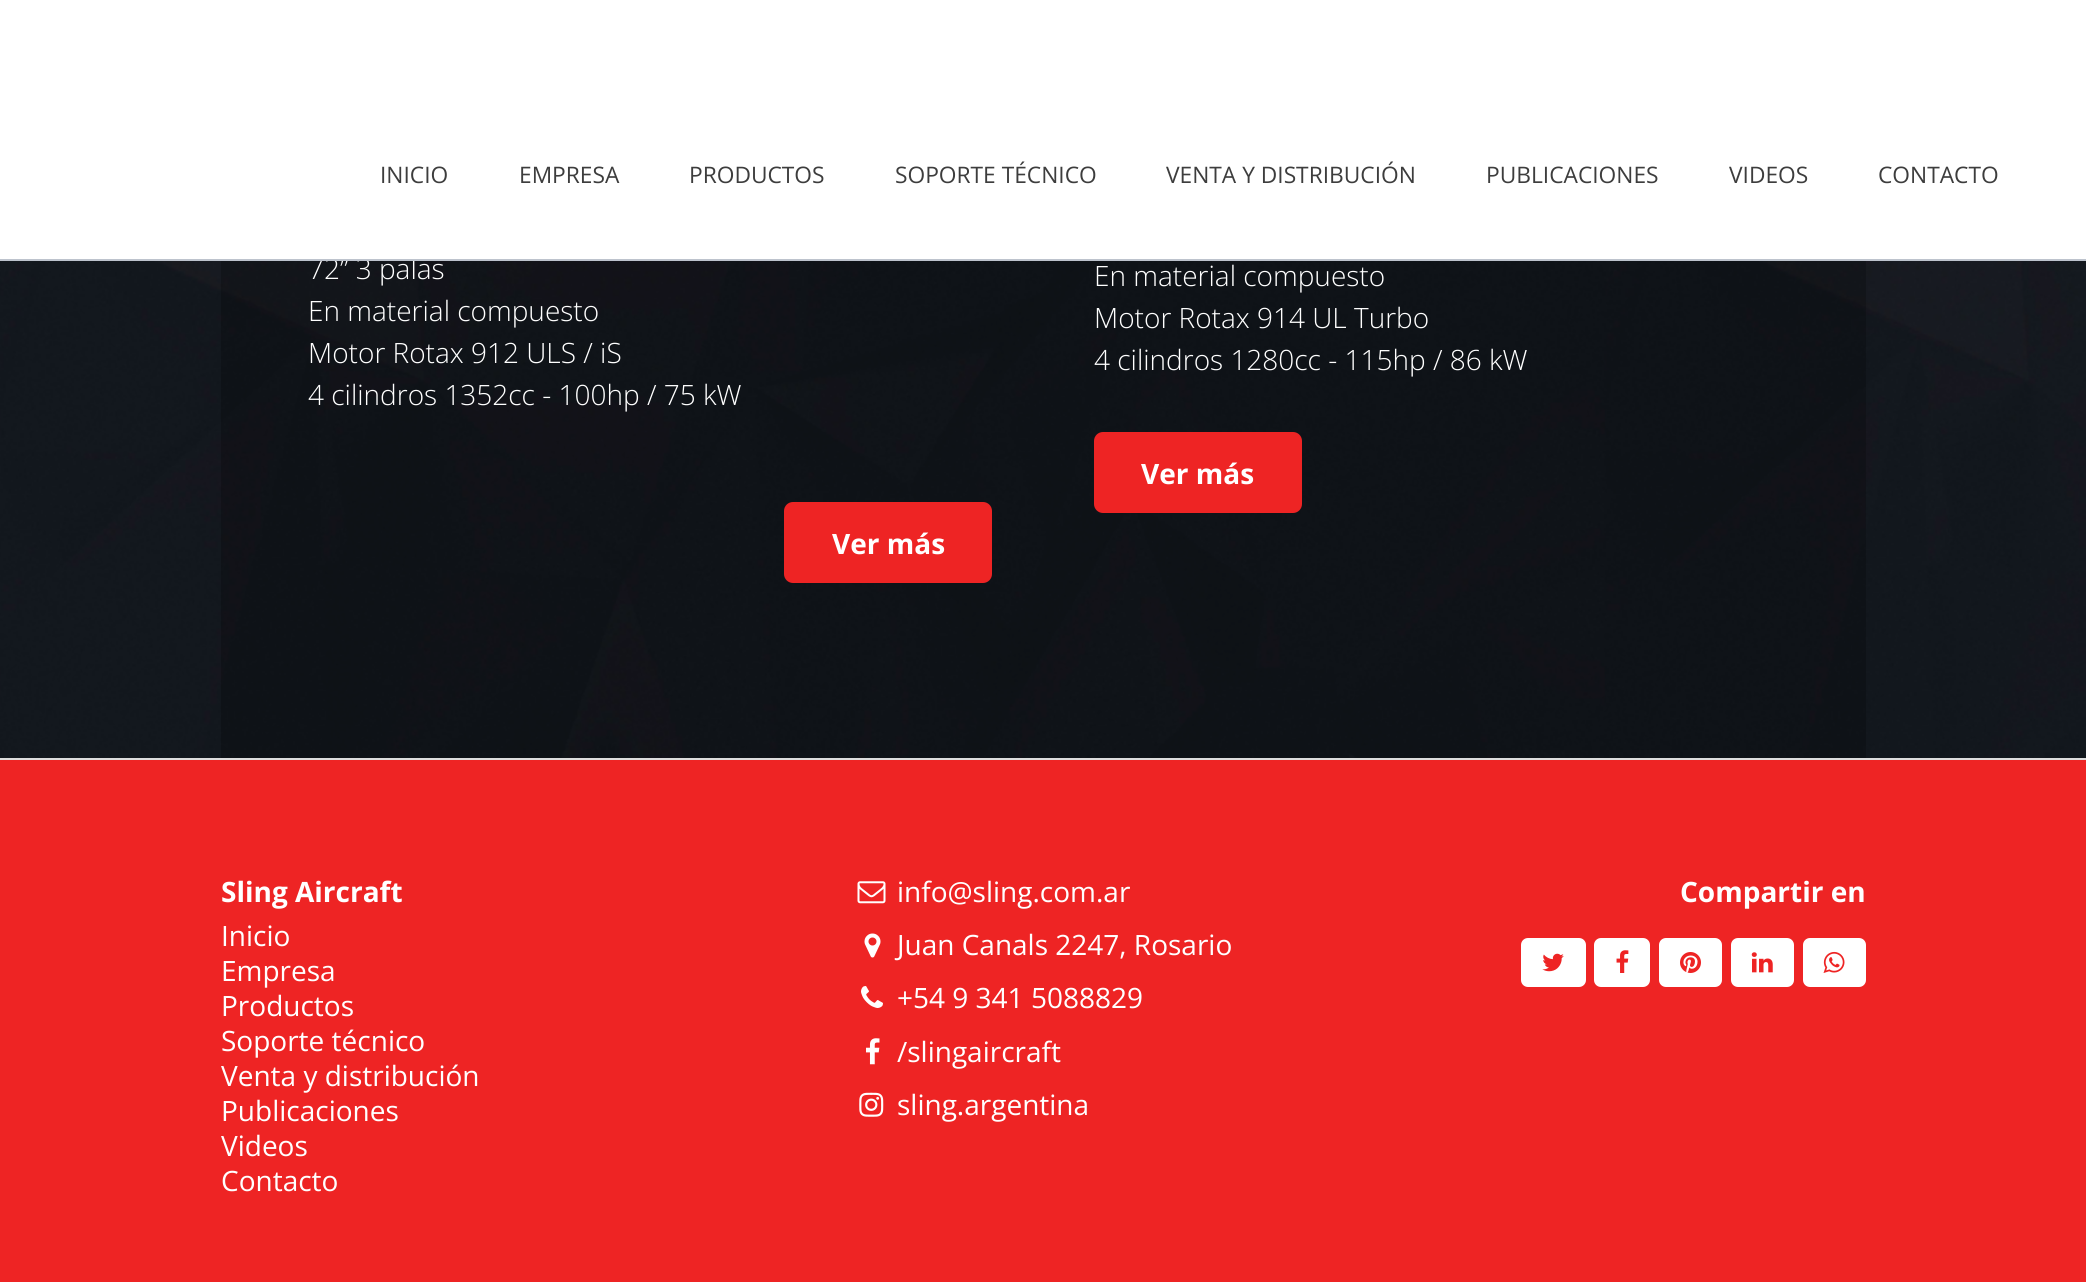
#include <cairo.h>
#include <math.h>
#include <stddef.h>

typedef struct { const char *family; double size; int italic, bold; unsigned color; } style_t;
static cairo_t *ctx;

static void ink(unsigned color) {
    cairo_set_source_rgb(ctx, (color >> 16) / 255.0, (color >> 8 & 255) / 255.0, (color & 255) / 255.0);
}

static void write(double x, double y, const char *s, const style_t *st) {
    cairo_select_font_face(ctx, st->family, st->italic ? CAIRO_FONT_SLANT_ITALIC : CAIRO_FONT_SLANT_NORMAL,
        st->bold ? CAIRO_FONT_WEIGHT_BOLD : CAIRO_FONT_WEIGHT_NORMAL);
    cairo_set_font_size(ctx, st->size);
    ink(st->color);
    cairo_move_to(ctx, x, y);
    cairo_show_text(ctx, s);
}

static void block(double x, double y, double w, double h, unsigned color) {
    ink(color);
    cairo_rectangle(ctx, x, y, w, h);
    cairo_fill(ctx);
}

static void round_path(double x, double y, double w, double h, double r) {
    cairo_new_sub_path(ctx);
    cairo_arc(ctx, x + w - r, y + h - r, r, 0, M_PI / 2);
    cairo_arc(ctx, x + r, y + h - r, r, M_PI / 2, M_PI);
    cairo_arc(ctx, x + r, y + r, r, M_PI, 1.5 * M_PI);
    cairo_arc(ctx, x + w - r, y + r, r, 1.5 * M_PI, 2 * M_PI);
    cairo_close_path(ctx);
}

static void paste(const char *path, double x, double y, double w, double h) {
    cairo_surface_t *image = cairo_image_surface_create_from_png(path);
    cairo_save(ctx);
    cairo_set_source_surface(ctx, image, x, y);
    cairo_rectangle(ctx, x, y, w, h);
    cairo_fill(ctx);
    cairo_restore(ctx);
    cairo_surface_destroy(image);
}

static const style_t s1 = {"Open Sans Light", 28, 0, 0, 0xffffff};
static const style_t s2 = {"Open Sans", 22.75, 0, 0, 0x3d3d3d};
static const style_t s3 = {"Open Sans", 28, 0, 1, 0xffffff};
static const style_t s4 = {"Open Sans", 28, 0, 0, 0xffffff};

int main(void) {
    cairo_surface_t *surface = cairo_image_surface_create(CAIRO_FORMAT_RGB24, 2086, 1282);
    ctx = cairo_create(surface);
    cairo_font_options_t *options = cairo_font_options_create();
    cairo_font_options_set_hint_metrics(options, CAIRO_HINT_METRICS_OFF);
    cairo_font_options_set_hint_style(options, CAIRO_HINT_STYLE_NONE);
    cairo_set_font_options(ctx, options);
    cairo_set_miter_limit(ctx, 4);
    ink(0xffffff);
    cairo_paint(ctx);
    paste("pic1.png", 0, 261, 2086, 497);
    cairo_set_source_rgba(ctx, 0, 0, 0, 0.2);
    cairo_rectangle(ctx, 221, 261, 1645, 497);
    cairo_fill(ctx);
    write(308, 279, "72” 3 palas", &s1);
    block(0, 259, 2086, 2, 0xbdc3cd);
    write(380, 183, "INICIO", &s2);
    write(519, 183, "EMPRESA", &s2);
    write(689, 183, "PRODUCTOS", &s2);
    write(895, 183, "SOPORTE TÉCNICO", &s2);
    write(1166, 183, "VENTA Y DISTRIBUCIÓN", &s2);
    write(1486, 183, "PUBLICACIONES", &s2);
    write(1729, 183, "VIDEOS", &s2);
    write(1878, 183, "CONTACTO", &s2);
    write(308, 321, "En material compuesto", &s1);
    write(308, 363, "Motor Rotax 912 ULS / iS", &s1);
    write(308, 405, "4 cilindros 1352cc - 100hp / 75 kW", &s1);
    ink(0xee2424);
    round_path(784, 502, 208, 81, 9);
    cairo_fill(ctx);
    write(832, 554, "Ver más", &s3);
    write(1094, 286, "En material compuesto", &s1);
    write(1094, 328, "Motor Rotax 914 UL Turbo", &s1);
    write(1094, 370, "4 cilindros 1280cc - 115hp / 86 kW", &s1);
    ink(0xee2424);
    round_path(1094, 432, 208, 81, 9);
    cairo_fill(ctx);
    write(1141, 484, "Ver más", &s3);
    block(0, 760, 2086, 522, 0xee2424);
    block(0, 758, 2086, 2, 0xdddddd);
    write(221, 902, "Sling Aircraft", &s3);
    write(221, 946, "Inicio", &s4);
    write(221, 981, "Empresa", &s4);
    write(221, 1016, "Productos", &s4);
    write(221, 1051, "Soporte técnico", &s4);
    write(221, 1086, "Venta y distribución", &s4);
    write(221, 1121, "Publicaciones", &s4);
    write(221, 1156, "Videos", &s4);
    write(221, 1191, "Contacto", &s4);
    paste("pic2.png", 857, 881, 29, 23);
    write(897, 902, "info@sling.com.ar", &s4);
    paste("pic3.png", 864, 933, 17, 25);
    write(897, 955, "Juan Canals 2247, Rosario", &s4);
    paste("pic4.png", 861, 986, 22, 22);
    write(897, 1008, "+54 9 341 5088829", &s4);
    paste("pic5.png", 866, 1038, 14, 27);
    write(897, 1062, "/slingaircraft", &s4);
    paste("pic6.png", 859, 1092, 25, 25);
    write(897, 1115, "sling.argentina", &s4);
    write(1680, 902, "Compartir en", &s3);
    round_path(1521, 938, 65, 49, 7);
    cairo_fill(ctx);
    paste("pic7.png", 1542, 953, 22, 19);
    round_path(1594, 938, 56, 49, 7);
    cairo_fill(ctx);
    paste("pic8.png", 1616, 950, 13, 23);
    round_path(1659, 938, 63, 49, 7);
    cairo_fill(ctx);
    paste("pic9.png", 1680, 952, 21, 21);
    round_path(1731, 938, 63, 49, 7);
    cairo_fill(ctx);
    paste("pic10.png", 1751, 952, 22, 21);
    round_path(1803, 938, 63, 49, 7);
    cairo_fill(ctx);
    paste("pic11.png", 1823, 951, 22, 22);
    cairo_surface_write_to_png(surface, "screenshot.png");
    cairo_font_options_destroy(options);
    cairo_destroy(ctx);
    cairo_surface_destroy(surface);
    return 0;
}
